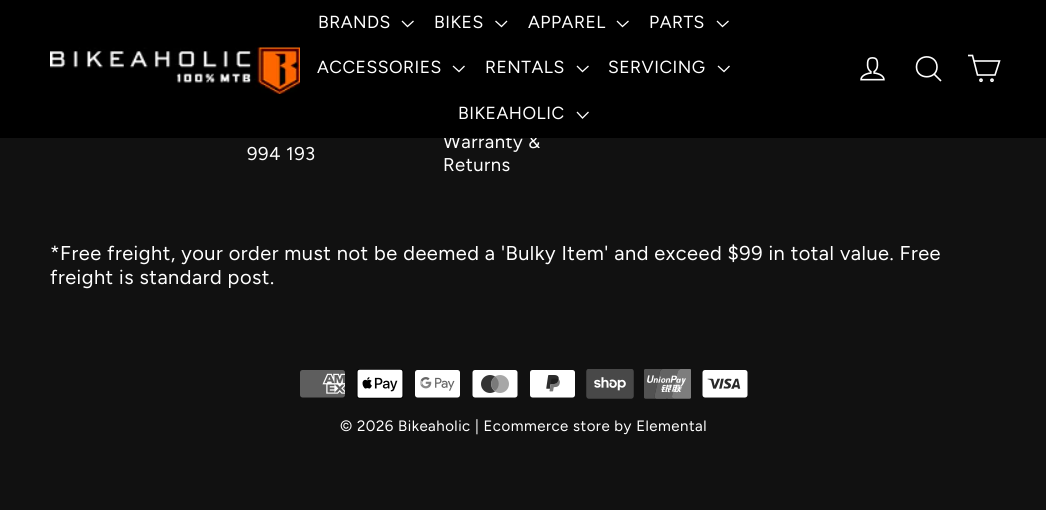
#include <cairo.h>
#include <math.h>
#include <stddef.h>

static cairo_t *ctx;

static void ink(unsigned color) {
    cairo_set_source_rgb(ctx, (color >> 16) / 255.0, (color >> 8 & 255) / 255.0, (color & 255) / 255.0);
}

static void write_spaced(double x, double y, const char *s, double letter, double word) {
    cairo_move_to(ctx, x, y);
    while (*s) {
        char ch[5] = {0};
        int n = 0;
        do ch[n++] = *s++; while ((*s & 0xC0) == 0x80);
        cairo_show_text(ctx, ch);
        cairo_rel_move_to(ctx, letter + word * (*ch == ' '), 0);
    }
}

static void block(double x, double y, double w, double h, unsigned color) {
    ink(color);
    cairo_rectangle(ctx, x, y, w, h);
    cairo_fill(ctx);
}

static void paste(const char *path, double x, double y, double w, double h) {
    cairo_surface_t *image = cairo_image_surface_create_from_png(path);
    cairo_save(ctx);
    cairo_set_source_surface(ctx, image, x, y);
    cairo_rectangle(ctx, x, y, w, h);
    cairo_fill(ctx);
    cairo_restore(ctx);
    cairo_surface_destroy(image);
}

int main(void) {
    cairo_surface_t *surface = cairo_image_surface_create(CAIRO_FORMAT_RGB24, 1046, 510);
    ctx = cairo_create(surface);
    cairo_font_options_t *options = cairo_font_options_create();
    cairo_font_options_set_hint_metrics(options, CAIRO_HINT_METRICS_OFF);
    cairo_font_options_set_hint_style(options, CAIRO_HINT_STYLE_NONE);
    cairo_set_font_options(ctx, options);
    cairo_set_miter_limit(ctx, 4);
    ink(0x111111);
    cairo_paint(ctx);
    cairo_select_font_face(ctx, "Figtree", CAIRO_FONT_SLANT_NORMAL, CAIRO_FONT_WEIGHT_NORMAL);
    cairo_set_font_size(ctx, 18.5);
    ink(0xffffff);
    write_spaced(443, 148, "Warranty &", 0.5, 0);
    block(0, 0, 1046, 138, 0x000000);
    paste("pic1.png", 50, 47, 250, 47);
    cairo_set_font_size(ctx, 17.5);
    ink(0xffffff);
    write_spaced(318, 28, "BRANDS", 0.5, 0);
    cairo_new_path(ctx);
    cairo_move_to(ctx, 402, 21);
    cairo_line_to(ctx, 407.5, 26.5);
    cairo_line_to(ctx, 413.5, 21);
    cairo_set_line_width(ctx, 1.3);
    cairo_stroke(ctx);
    write_spaced(434, 28, "BIKES", 0.5, 0);
    cairo_new_path(ctx);
    cairo_move_to(ctx, 495.5, 21);
    cairo_line_to(ctx, 501.5, 26.5);
    cairo_line_to(ctx, 507, 21);
    cairo_stroke(ctx);
    write_spaced(528, 28, "APPAREL", 0.5, 0);
    cairo_new_path(ctx);
    cairo_move_to(ctx, 617, 21);
    cairo_line_to(ctx, 622.5, 26.5);
    cairo_line_to(ctx, 628.5, 21);
    cairo_stroke(ctx);
    write_spaced(649, 28, "PARTS", 0.5, 0);
    cairo_new_path(ctx);
    cairo_move_to(ctx, 717, 21);
    cairo_line_to(ctx, 722.5, 26.5);
    cairo_line_to(ctx, 728.5, 21);
    cairo_stroke(ctx);
    write_spaced(317, 73, "ACCESSORIES", 0.5, 0);
    cairo_new_path(ctx);
    cairo_move_to(ctx, 453, 66);
    cairo_line_to(ctx, 459, 71.5);
    cairo_line_to(ctx, 464.5, 66);
    cairo_stroke(ctx);
    write_spaced(485, 73, "RENTALS", 0.5, 0);
    cairo_new_path(ctx);
    cairo_move_to(ctx, 577, 66);
    cairo_line_to(ctx, 582.5, 71.5);
    cairo_line_to(ctx, 588.5, 66);
    cairo_stroke(ctx);
    write_spaced(608, 73, "SERVICING", 0.5, 0);
    cairo_new_path(ctx);
    cairo_move_to(ctx, 718, 66);
    cairo_line_to(ctx, 724, 71.5);
    cairo_line_to(ctx, 729.5, 66);
    cairo_stroke(ctx);
    write_spaced(458, 119, "BIKEAHOLIC", 0.5, 0);
    cairo_new_path(ctx);
    cairo_move_to(ctx, 577, 112);
    cairo_line_to(ctx, 582.5, 118);
    cairo_line_to(ctx, 588.5, 112);
    cairo_stroke(ctx);
    paste("pic2.png", 860, 57, 25, 24);
    cairo_new_path(ctx);
    cairo_move_to(ctx, 937, 67);
    cairo_curve_to(ctx, 937, 80, 916.5, 80, 916.5, 67);
    cairo_curve_to(ctx, 916.5, 53.5, 937, 53.5, 937, 67);
    cairo_close_path(ctx);
    cairo_move_to(ctx, 941, 81);
    cairo_line_to(ctx, 934, 74);
    cairo_set_line_width(ctx, 1.6);
    cairo_stroke(ctx);
    cairo_new_path(ctx);
    cairo_move_to(ctx, 974, 61);
    cairo_line_to(ctx, 999.5, 61);
    cairo_line_to(ctx, 995, 75);
    cairo_line_to(ctx, 977.5, 75);
    cairo_line_to(ctx, 972.5, 55.5);
    cairo_line_to(ctx, 968, 55.5);
    cairo_stroke(ctx);
    cairo_arc(ctx, 981, 80.2, 1.1, 0, 2 * M_PI);
    cairo_stroke(ctx);
    cairo_arc(ctx, 992, 80.2, 1.1, 0, 2 * M_PI);
    cairo_stroke(ctx);
    cairo_set_font_size(ctx, 18.5);
    write_spaced(247, 160, "994 193", 0.5, 0);
    write_spaced(443, 171, "Returns", 0.5, 0);
    cairo_set_font_size(ctx, 20);
    write_spaced(50, 260, "*Free freight, your order must not be deemed a 'Bulky Item' and exceed $99 in total value. Free", 0.5, 0);
    write_spaced(50, 284, "freight is standard post.", 0.5, 0);
    paste("pic3.png", 300, 370, 45, 28);
    paste("pic4.png", 356, 369, 48, 30);
    paste("pic5.png", 415, 370, 45, 28);
    paste("pic6.png", 472, 370, 46, 28);
    paste("pic7.png", 530, 370, 45, 28);
    paste("pic8.png", 586, 369, 48, 30);
    paste("pic9.png", 644, 369, 47, 30);
    paste("pic10.png", 702, 370, 46, 28);
    cairo_set_font_size(ctx, 15);
    write_spaced(340, 431, "© 2026 Bikeaholic | Ecommerce store by Elemental", 0.5, 0);
    cairo_surface_write_to_png(surface, "screenshot.png");
    cairo_font_options_destroy(options);
    cairo_destroy(ctx);
    cairo_surface_destroy(surface);
    return 0;
}
